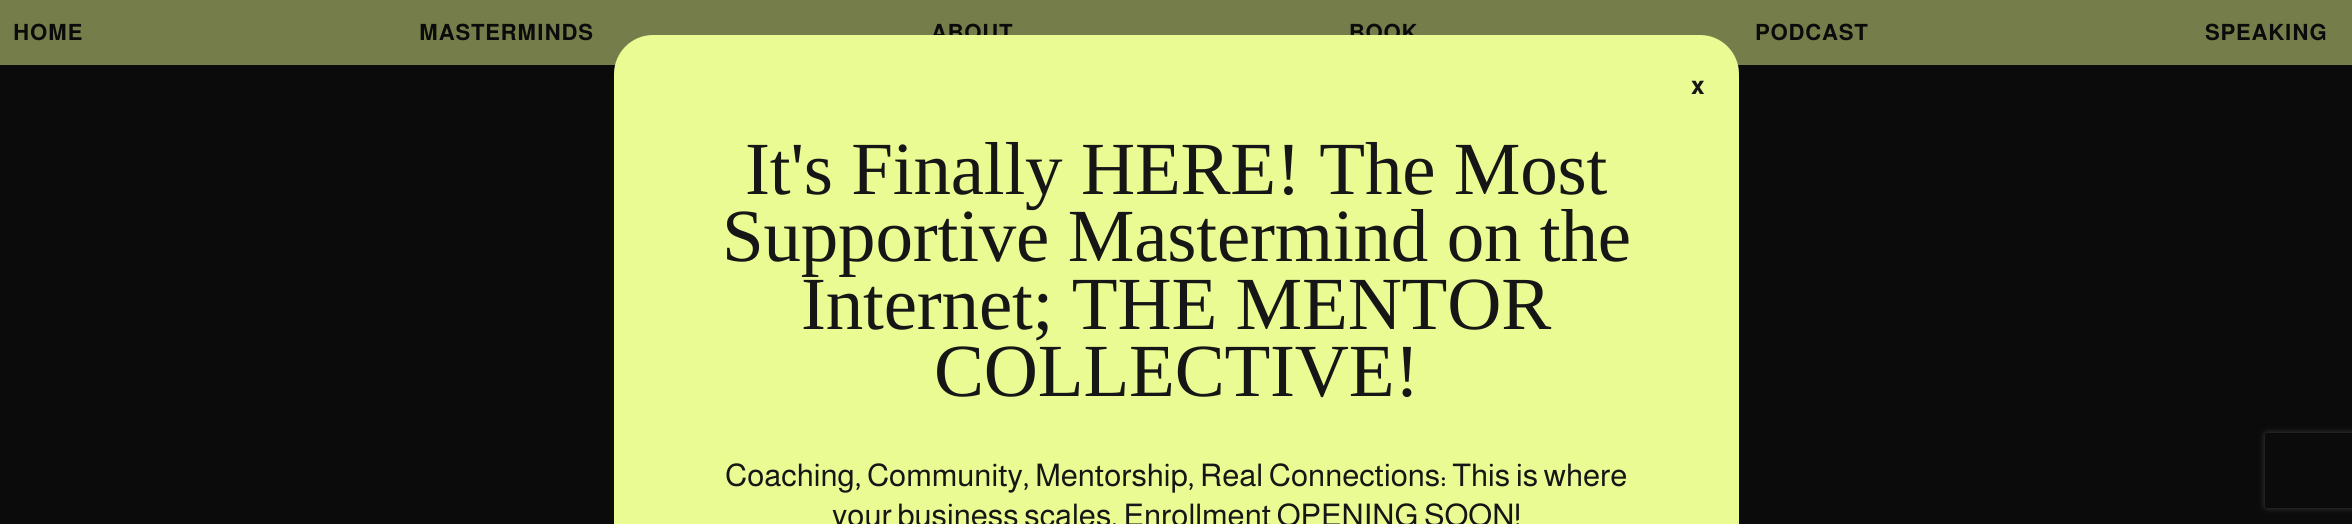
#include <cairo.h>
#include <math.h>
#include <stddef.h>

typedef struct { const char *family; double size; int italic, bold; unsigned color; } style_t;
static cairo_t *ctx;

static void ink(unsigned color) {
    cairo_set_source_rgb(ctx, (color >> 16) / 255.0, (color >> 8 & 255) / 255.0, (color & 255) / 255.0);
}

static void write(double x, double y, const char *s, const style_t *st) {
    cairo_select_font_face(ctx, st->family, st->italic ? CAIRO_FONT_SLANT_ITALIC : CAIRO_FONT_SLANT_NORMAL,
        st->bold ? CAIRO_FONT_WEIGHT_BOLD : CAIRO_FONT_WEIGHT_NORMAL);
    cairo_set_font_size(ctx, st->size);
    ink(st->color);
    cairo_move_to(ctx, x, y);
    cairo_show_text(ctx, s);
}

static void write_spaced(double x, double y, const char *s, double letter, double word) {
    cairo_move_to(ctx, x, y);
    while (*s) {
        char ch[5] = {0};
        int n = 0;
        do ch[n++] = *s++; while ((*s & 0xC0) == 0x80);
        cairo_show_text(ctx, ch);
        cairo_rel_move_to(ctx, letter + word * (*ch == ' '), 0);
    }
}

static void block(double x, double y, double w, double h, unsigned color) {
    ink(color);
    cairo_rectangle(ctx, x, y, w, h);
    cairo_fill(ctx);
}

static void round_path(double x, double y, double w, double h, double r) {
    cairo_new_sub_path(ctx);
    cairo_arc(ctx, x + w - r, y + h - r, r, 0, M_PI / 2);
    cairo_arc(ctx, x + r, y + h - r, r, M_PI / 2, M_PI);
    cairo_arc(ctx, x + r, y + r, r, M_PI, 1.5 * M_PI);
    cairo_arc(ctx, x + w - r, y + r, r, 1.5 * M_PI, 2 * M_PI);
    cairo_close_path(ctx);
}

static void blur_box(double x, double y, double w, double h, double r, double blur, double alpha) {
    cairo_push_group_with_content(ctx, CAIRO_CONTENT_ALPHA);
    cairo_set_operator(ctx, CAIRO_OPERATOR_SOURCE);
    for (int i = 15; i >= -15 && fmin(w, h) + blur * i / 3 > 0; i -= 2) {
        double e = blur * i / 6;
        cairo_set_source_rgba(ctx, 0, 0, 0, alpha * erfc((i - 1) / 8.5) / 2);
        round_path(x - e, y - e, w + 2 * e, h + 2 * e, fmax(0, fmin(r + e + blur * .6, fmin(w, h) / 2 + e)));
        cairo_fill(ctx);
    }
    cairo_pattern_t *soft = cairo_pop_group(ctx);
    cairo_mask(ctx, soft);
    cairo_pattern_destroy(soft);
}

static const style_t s1 = {"Almarai", 25, 0, 1, 0x161616};
static const style_t s2 = {"Almarai", 31.25, 0, 0, 0x161616};

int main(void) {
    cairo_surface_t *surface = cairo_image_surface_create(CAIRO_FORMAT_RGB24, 2352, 524);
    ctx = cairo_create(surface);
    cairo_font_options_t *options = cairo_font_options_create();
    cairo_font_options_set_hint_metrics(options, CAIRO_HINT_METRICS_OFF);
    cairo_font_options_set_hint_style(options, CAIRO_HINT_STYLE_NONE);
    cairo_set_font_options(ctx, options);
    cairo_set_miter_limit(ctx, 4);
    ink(0x0b0b0b);
    cairo_paint(ctx);
    block(0, 0, 2352, 65, 0x757e4a);
    cairo_select_font_face(ctx, "Almarai", CAIRO_FONT_SLANT_NORMAL, CAIRO_FONT_WEIGHT_BOLD);
    cairo_set_font_size(ctx, 22.5);
    ink(0x0b0b0b);
    write_spaced(13, 40, "HOME", 0.75, 0);
    write_spaced(419, 40, "MASTERMINDS", 0.75, 0);
    write_spaced(931, 40, "ABOUT", 0.75, 0);
    write_spaced(1349, 40, "BOOK", 0.75, 0);
    write_spaced(1755, 40, "PODCAST", 0.75, 0);
    write_spaced(2205, 40, "SPEAKING", 0.75, 0);
    ink(0xeafb93);
    cairo_new_path(ctx);
    cairo_move_to(ctx, 653, 35);
    cairo_line_to(ctx, 1700, 35);
    cairo_curve_to(ctx, 1721.5, 35, 1739, 52.5, 1739, 74);
    cairo_line_to(ctx, 1739, 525);
    cairo_line_to(ctx, 614, 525);
    cairo_line_to(ctx, 614, 74);
    cairo_curve_to(ctx, 614, 52.5, 631.5, 35, 653, 35);
    cairo_close_path(ctx);
    cairo_fill(ctx);
    write(1691, 94, "x", &s1);
    cairo_select_font_face(ctx, "Liberation Serif", CAIRO_FONT_SLANT_NORMAL, CAIRO_FONT_WEIGHT_NORMAL);
    cairo_set_font_size(ctx, 75);
    write_spaced(745, 194, "It's Finally HERE! The Most", -0.2, 0);
    write_spaced(722, 261, "Supportive Mastermind on the", -0.2, 0);
    write_spaced(801, 329, "Internet; THE MENTOR", -0.2, 0);
    write_spaced(934, 396, "COLLECTIVE!", -0.2, 0);
    write(725, 486, "Coaching, Community, Mentorship, Real Connections: This is where", &s2);
    write(832, 526, "your business scales, Enrollment OPENING SOON!", &s2);
    cairo_save(ctx);
    cairo_set_fill_rule(ctx, CAIRO_FILL_RULE_EVEN_ODD);
    cairo_new_path(ctx);
    cairo_move_to(ctx, 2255, 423);
    cairo_line_to(ctx, 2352, 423);
    cairo_line_to(ctx, 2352, 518);
    cairo_line_to(ctx, 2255, 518);
    cairo_close_path(ctx);
    cairo_move_to(ctx, 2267.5, 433);
    cairo_line_to(ctx, 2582.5, 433);
    cairo_curve_to(ctx, 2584, 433, 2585, 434, 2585, 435.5);
    cairo_line_to(ctx, 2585, 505.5);
    cairo_curve_to(ctx, 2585, 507, 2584, 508, 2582.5, 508);
    cairo_line_to(ctx, 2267.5, 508);
    cairo_curve_to(ctx, 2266, 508, 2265, 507, 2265, 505.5);
    cairo_line_to(ctx, 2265, 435.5);
    cairo_curve_to(ctx, 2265, 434, 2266, 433, 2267.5, 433);
    cairo_close_path(ctx);
    cairo_clip(ctx);
    ink(0x404040);
    blur_box(2265, 433, 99, 75, 2.5, 3, 1);
    cairo_restore(ctx);
    cairo_surface_write_to_png(surface, "screenshot.png");
    cairo_font_options_destroy(options);
    cairo_destroy(ctx);
    cairo_surface_destroy(surface);
    return 0;
}
